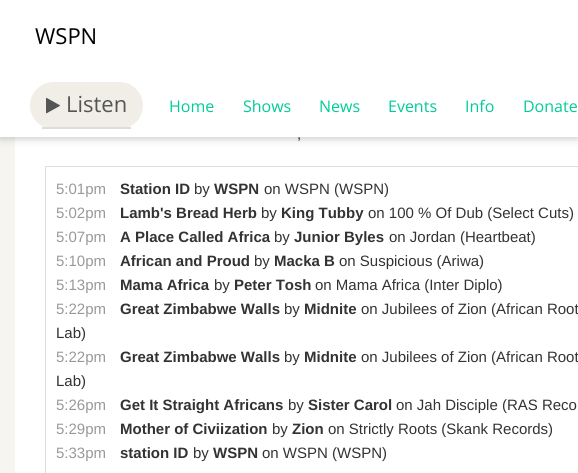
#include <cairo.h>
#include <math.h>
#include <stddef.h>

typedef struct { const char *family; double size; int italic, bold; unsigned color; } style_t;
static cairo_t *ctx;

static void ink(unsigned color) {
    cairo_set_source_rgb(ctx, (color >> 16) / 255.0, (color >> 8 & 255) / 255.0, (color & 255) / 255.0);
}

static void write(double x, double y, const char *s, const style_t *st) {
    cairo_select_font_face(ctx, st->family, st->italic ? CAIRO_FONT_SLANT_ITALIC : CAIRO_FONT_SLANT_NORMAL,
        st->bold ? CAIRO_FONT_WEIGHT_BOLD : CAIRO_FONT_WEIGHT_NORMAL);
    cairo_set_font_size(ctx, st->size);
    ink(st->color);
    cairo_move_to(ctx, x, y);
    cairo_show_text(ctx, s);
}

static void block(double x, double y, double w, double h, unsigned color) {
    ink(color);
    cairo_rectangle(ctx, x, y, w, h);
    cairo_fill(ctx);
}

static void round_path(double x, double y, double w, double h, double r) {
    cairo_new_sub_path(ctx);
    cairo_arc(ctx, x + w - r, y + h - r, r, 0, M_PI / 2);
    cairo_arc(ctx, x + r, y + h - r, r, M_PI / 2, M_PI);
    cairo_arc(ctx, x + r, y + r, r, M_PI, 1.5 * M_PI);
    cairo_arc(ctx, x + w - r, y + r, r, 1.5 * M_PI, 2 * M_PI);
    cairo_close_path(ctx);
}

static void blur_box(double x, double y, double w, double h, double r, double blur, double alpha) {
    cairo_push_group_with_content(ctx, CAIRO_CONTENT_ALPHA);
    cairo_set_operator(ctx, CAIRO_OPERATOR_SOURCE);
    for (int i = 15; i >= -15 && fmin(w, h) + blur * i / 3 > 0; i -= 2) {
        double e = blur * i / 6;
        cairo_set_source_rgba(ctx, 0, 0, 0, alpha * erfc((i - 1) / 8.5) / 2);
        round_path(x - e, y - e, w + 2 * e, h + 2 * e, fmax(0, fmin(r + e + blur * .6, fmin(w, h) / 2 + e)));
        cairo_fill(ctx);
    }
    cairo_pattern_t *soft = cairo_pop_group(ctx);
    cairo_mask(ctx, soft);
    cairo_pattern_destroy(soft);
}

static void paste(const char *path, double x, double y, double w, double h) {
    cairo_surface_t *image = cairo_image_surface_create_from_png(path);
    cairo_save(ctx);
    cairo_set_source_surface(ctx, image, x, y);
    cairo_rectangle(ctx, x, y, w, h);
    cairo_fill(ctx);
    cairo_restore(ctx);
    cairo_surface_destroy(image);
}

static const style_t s1 = {"Open Sans", 22, 0, 0, 0x000000};
static const style_t s2 = {"Open Sans", 22, 0, 0, 0x555555};
static const style_t s3 = {"Open Sans", 16, 0, 0, 0x00cc99};
static const style_t s4 = {"Liberation Sans", 15, 0, 0, 0x333333};
static const style_t s5 = {"Liberation Sans", 15, 0, 0, 0x999999};
static const style_t s6 = {"Liberation Sans", 15, 0, 1, 0x333333};

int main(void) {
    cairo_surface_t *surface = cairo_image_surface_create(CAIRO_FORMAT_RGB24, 578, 473);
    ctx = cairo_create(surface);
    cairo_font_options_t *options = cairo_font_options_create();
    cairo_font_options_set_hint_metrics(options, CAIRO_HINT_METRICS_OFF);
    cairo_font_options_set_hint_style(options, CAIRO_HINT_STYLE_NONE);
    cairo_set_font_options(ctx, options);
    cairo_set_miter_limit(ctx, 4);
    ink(0xf6f5f0);
    cairo_paint(ctx);
    block(15, 137, 563, 336, 0xffffff);
    ink(0x000000);
    blur_box(0, 2, 578, 137, 0, 4, 0.2);
    block(0, 0, 578, 137, 0xffffff);
    write(35, 44, "WSPN", &s1);
    ink(0xf0eee6);
    round_path(30, 82, 113, 47, 23.5);
    cairo_fill(ctx);
    block(42, 127, 89, 2, 0xdddddd);
    paste("pic1.png", 46, 97, 14, 17);
    write(66, 112, "Listen", &s2);
    write(169, 112, "Home", &s3);
    write(243, 112, "Shows", &s3);
    write(319, 112, "News", &s3);
    write(388, 112, "Events", &s3);
    write(465, 112, "Info", &s3);
    write(523, 112, "Donate", &s3);
    write(297, 139, ",", &s4);
    cairo_rectangle(ctx, 45.5, 166.5, 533, 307);
    ink(0xdddddd);
    cairo_set_line_width(ctx, 1);
    cairo_stroke(ctx);
    write(56, 194, "5:01pm", &s5);
    write(120, 194, "Station ID", &s6);
    write(194, 194, "by", &s4);
    write(214, 194, "WSPN", &s6);
    write(264, 194, "on WSPN (WSPN)", &s4);
    write(56, 218, "5:02pm", &s5);
    write(120, 218, "Lamb's Bread Herb", &s6);
    write(261, 218, "by", &s4);
    write(281, 218, "King Tubby", &s6);
    write(368, 218, "on 100 % Of Dub (Select Cuts)", &s4);
    write(56, 242, "5:07pm", &s5);
    write(120, 242, "A Place Called Africa", &s6);
    write(274, 242, "by", &s4);
    write(294, 242, "Junior Byles", &s6);
    write(389, 242, "on Jordan (Heartbeat)", &s4);
    write(56, 266, "5:10pm", &s5);
    write(120, 266, "African and Proud", &s6);
    write(254, 266, "by", &s4);
    write(274, 266, "Macka B", &s6);
    write(339, 266, "on Suspicious (Ariwa)", &s4);
    write(56, 290, "5:13pm", &s5);
    write(120, 290, "Mama Africa", &s6);
    write(214, 290, "by", &s4);
    write(234, 290, "Peter Tosh", &s6);
    write(315, 290, "on Mama Africa (Inter Diplo)", &s4);
    write(56, 314, "5:22pm", &s5);
    write(120, 314, "Great Zimbabwe Walls", &s6);
    write(284, 314, "by", &s4);
    write(304, 314, "Midnite", &s6);
    write(361, 314, "on Jubilees of Zion (African Root", &s4);
    write(56, 338, "Lab)", &s4);
    write(56, 362, "5:22pm", &s5);
    write(120, 362, "Great Zimbabwe Walls", &s6);
    write(284, 362, "by", &s4);
    write(304, 362, "Midnite", &s6);
    write(361, 362, "on Jubilees of Zion (African Root", &s4);
    write(56, 386, "Lab)", &s4);
    write(56, 410, "5:26pm", &s5);
    write(120, 410, "Get It Straight Africans", &s6);
    write(288, 410, "by", &s4);
    write(308, 410, "Sister Carol", &s6);
    write(396, 410, "on Jah Disciple (RAS Reco", &s4);
    write(56, 434, "5:29pm", &s5);
    write(120, 434, "Mother of Civiization", &s6);
    write(272, 434, "by", &s4);
    write(292, 434, "Zion", &s6);
    write(328, 434, "on Strictly Roots (Skank Records)", &s4);
    write(56, 458, "5:33pm", &s5);
    write(120, 458, "station ID", &s6);
    write(193, 458, "by", &s4);
    write(213, 458, "WSPN", &s6);
    write(262, 458, "on WSPN (WSPN)", &s4);
    cairo_surface_write_to_png(surface, "screenshot.png");
    cairo_font_options_destroy(options);
    cairo_destroy(ctx);
    cairo_surface_destroy(surface);
    return 0;
}
